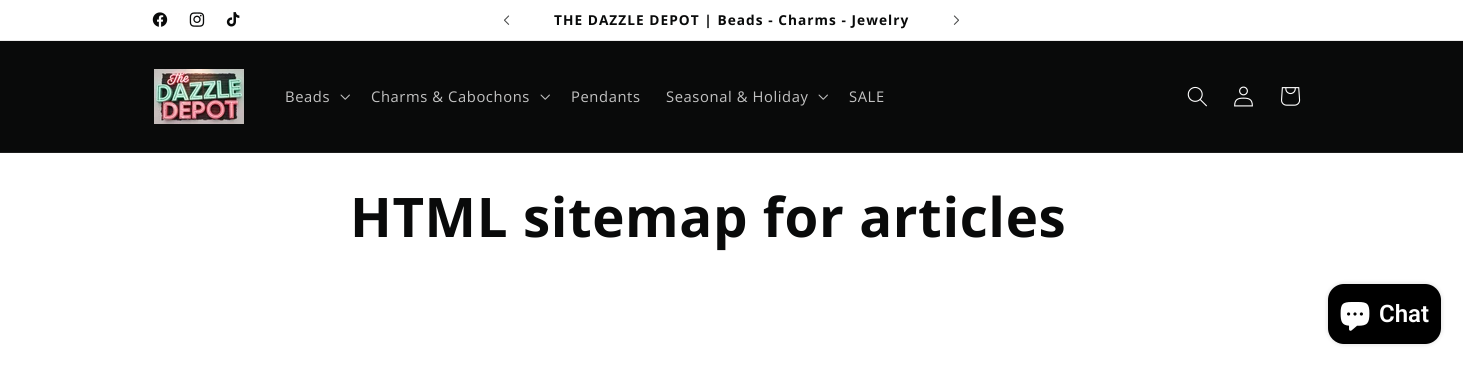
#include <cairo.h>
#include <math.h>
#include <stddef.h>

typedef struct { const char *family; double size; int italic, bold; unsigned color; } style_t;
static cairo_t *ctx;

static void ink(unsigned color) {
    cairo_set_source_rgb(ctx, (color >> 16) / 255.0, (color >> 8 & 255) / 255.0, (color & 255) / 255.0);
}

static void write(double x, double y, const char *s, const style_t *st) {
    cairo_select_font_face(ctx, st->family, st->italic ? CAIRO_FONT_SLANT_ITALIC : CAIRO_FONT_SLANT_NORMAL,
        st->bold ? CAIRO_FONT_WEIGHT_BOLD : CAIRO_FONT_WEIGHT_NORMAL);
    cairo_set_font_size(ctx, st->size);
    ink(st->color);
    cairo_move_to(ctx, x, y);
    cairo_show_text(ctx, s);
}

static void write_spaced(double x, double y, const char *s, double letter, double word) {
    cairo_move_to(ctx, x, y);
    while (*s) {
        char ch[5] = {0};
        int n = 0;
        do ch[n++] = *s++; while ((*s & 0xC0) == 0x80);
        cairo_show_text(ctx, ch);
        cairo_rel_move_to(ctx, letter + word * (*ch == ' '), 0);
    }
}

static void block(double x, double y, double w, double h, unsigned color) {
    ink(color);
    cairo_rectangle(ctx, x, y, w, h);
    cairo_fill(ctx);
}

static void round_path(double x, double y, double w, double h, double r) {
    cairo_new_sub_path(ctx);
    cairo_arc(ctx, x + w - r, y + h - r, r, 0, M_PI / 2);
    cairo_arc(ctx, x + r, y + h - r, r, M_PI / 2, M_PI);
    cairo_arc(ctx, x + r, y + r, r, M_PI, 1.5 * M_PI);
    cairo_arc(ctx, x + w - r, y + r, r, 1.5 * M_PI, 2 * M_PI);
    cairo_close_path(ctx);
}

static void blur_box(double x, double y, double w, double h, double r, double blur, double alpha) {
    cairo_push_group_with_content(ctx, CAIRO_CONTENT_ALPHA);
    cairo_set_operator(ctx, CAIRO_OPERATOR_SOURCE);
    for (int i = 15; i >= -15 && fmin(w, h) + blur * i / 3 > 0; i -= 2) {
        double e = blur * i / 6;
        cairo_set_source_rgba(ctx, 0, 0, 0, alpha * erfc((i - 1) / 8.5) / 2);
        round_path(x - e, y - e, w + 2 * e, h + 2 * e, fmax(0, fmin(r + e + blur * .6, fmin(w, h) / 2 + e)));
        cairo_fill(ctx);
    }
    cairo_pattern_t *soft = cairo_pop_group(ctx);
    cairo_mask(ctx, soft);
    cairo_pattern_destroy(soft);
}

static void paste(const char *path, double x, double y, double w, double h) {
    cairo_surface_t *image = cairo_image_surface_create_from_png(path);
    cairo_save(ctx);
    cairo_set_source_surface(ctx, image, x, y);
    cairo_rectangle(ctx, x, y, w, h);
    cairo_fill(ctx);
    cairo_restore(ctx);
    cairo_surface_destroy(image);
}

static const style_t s1 = {"Roboto SemiBold", 24, 0, 0, 0xffffff};

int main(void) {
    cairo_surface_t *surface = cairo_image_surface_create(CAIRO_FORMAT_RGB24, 1463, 365);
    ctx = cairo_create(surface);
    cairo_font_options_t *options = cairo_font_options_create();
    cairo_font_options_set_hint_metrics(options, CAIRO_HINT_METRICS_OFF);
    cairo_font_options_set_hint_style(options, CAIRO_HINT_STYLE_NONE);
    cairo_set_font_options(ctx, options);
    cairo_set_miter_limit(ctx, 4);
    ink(0xffffff);
    cairo_paint(ctx);
    block(0, 40, 1463, 1, 0xebebeb);
    paste("pic1.png", 152, 12, 16, 15);
    paste("pic2.png", 189, 12, 16, 15);
    paste("pic3.png", 226, 12, 14, 15);
    paste("pic4.png", 504, 15, 6, 10);
    cairo_select_font_face(ctx, "Open Sans", CAIRO_FONT_SLANT_NORMAL, CAIRO_FONT_WEIGHT_BOLD);
    cairo_set_font_size(ctx, 13.65);
    ink(0x090a0a);
    write_spaced(554, 25, "THE DAZZLE DEPOT | Beads - Charms - Jewelry", 1.05, 0);
    paste("pic5.png", 953, 15, 6, 10);
    block(0, 41, 1463, 111, 0x090a0a);
    block(0, 152, 1463, 1, 0x1d1e1e);
    paste("pic6.png", 154, 69, 90, 55);
    cairo_select_font_face(ctx, "Open Sans", CAIRO_FONT_SLANT_NORMAL, CAIRO_FONT_WEIGHT_NORMAL);
    cairo_set_font_size(ctx, 14.75);
    ink(0xc2c2c2);
    write_spaced(285, 102, "Beads", 0.6, 0);
    paste("pic7.png", 340, 94, 10, 6);
    write_spaced(371, 102, "Charms & Cabochons", 0.6, 0);
    paste("pic7.png", 540, 94, 10, 6);
    write_spaced(571, 102, "Pendants", 0.6, 0);
    write_spaced(666, 102, "Seasonal & Holiday", 0.6, 0);
    paste("pic7.png", 818, 94, 10, 6);
    write_spaced(849, 102, "SALE", 0.6, 0);
    paste("pic8.png", 1187, 86, 20, 21);
    paste("pic9.png", 1234, 86, 19, 21);
    paste("pic10.png", 1281, 87, 20, 19);
    cairo_select_font_face(ctx, "Open Sans", CAIRO_FONT_SLANT_NORMAL, CAIRO_FONT_WEIGHT_BOLD);
    cairo_set_font_size(ctx, 54.6);
    ink(0x090a0a);
    write_spaced(350, 237, "HTML sitemap for articles", 0.6, 0);
    ink(0x000000);
    blur_box(1328, 284, 113, 60, 16, 2.5, 0.15);
    ink(0x000000);
    round_path(1328, 284, 113, 60, 16);
    cairo_fill(ctx);
    paste("pic11.png", 1340, 302, 30, 29);
    write(1379, 322, "Chat", &s1);
    cairo_surface_write_to_png(surface, "screenshot.png");
    cairo_font_options_destroy(options);
    cairo_destroy(ctx);
    cairo_surface_destroy(surface);
    return 0;
}
